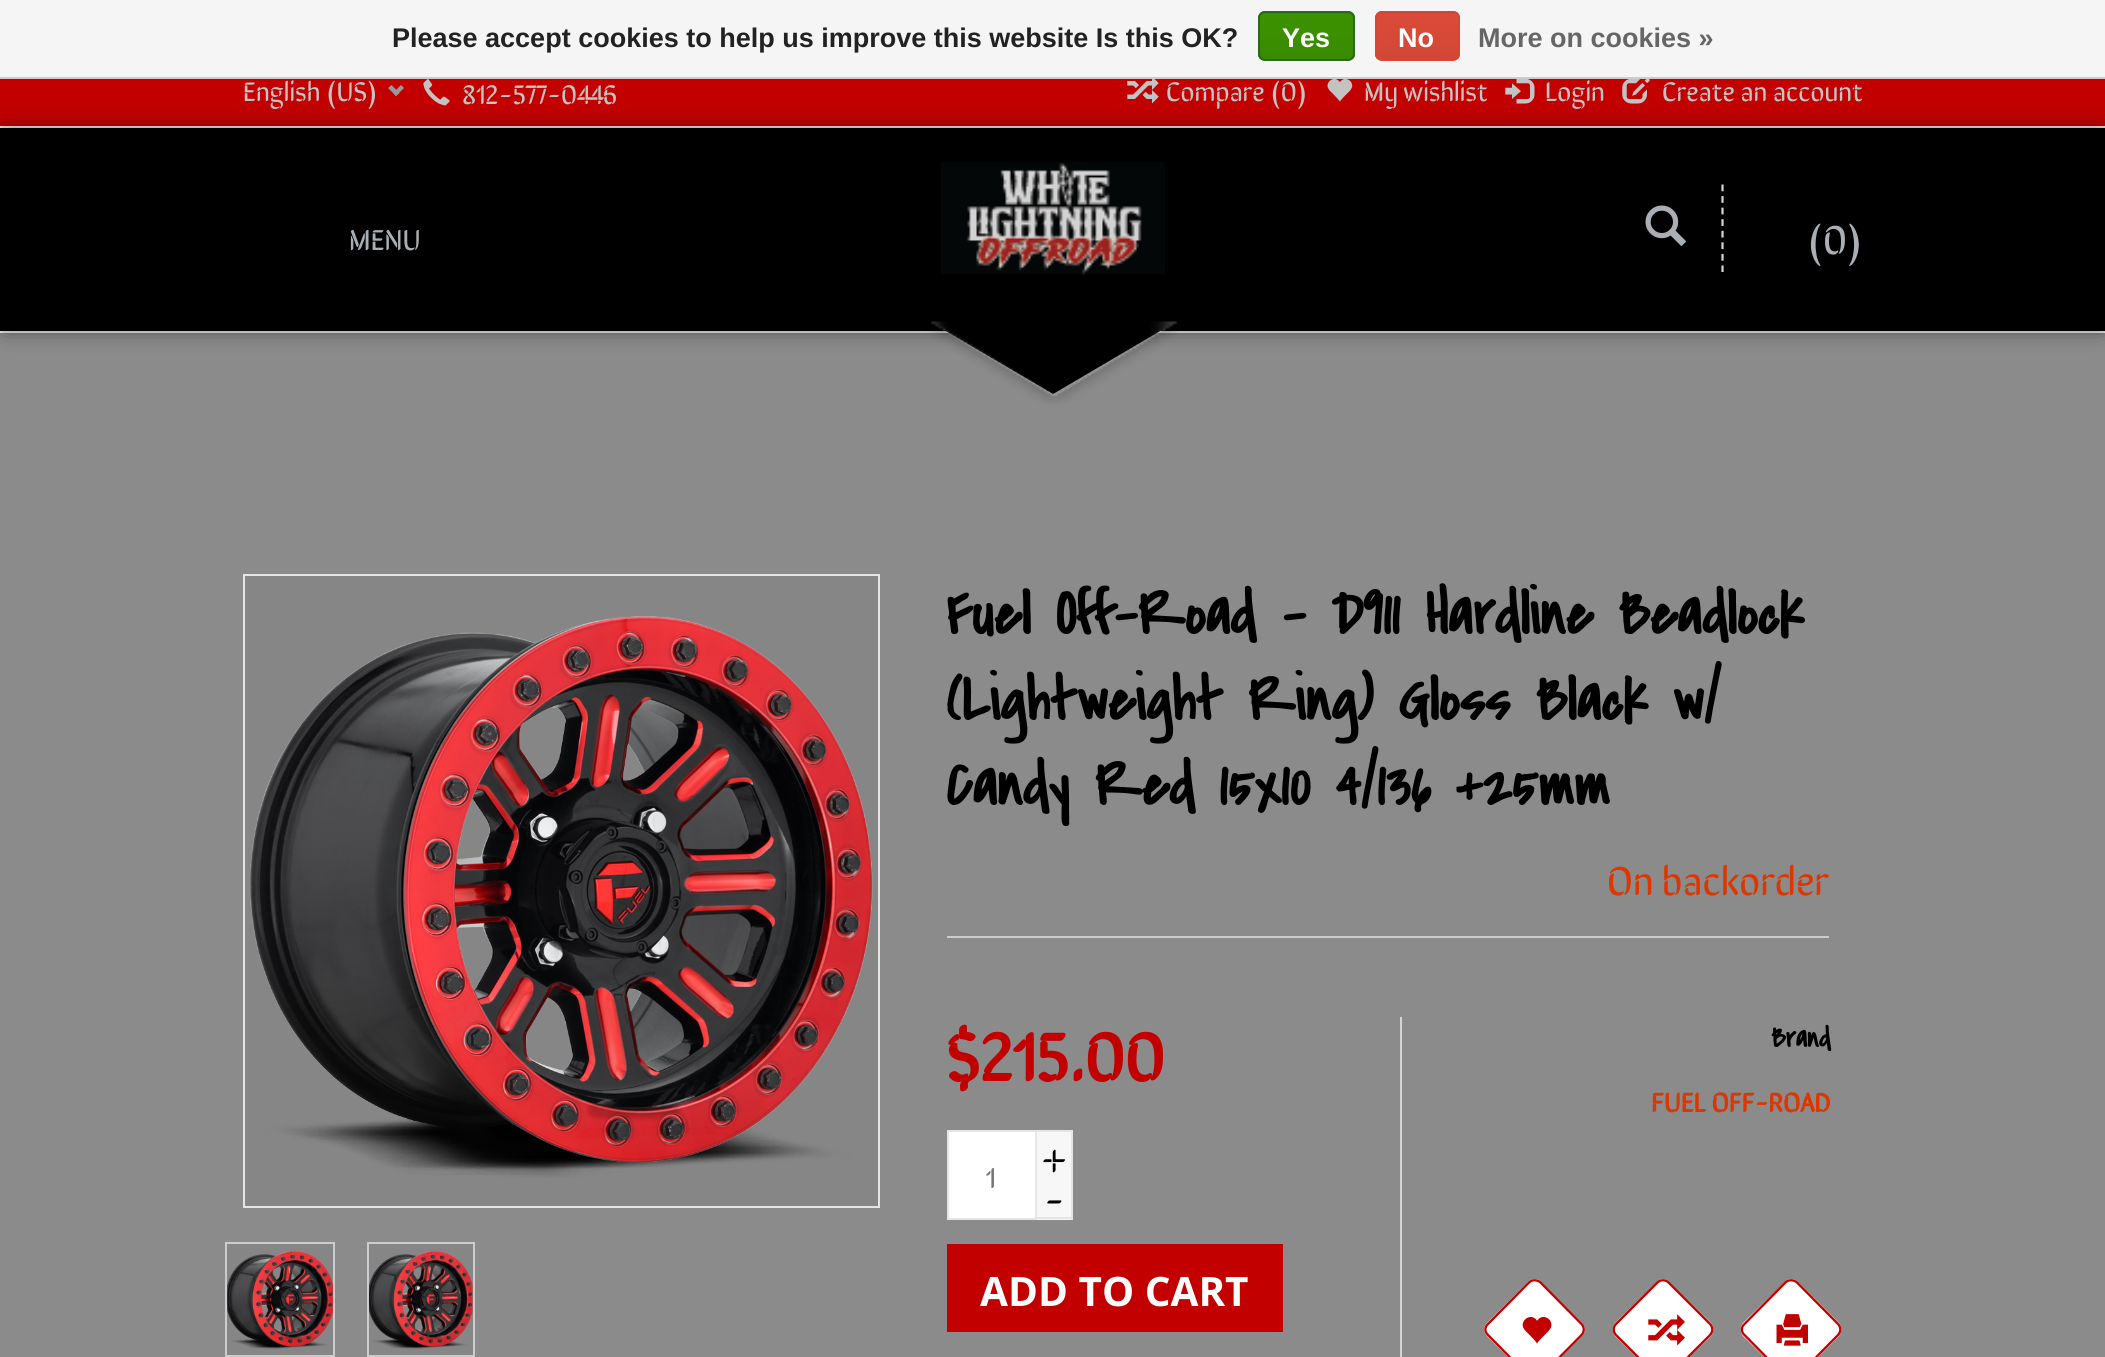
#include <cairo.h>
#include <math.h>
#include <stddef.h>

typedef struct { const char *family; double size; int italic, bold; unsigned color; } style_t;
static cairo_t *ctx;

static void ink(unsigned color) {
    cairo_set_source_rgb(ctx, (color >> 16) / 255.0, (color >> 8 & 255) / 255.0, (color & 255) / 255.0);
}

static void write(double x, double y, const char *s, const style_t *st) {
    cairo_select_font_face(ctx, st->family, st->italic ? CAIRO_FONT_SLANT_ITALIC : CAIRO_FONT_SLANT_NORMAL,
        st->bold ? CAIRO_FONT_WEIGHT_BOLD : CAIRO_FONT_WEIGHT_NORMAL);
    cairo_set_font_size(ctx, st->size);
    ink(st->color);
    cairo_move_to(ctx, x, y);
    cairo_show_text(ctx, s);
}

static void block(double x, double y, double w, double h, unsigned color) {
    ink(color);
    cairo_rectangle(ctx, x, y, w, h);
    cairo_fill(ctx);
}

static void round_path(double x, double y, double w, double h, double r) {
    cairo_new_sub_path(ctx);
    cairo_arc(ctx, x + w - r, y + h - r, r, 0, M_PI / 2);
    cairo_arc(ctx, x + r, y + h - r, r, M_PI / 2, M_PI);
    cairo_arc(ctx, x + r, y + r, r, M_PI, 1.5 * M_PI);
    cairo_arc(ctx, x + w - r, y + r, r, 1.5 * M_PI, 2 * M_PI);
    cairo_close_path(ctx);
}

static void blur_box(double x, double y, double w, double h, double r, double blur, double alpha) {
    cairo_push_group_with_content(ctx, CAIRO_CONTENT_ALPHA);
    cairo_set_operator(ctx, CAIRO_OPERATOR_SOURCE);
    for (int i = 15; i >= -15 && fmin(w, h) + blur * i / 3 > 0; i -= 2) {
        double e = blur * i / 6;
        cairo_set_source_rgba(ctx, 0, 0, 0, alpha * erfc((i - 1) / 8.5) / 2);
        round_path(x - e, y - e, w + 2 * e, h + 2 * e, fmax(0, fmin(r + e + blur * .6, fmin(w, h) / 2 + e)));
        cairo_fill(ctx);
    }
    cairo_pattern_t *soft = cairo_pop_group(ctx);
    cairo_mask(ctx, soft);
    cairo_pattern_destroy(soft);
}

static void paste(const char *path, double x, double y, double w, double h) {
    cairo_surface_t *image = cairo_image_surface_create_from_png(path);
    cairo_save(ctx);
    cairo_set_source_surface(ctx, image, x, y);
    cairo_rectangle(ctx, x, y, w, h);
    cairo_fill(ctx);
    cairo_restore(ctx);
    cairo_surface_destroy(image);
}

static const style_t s1 = {"Liberation Sans", 27, 0, 1, 0x222222};
static const style_t s2 = {"Liberation Sans", 27, 0, 1, 0xffffff};
static const style_t s3 = {"Liberation Sans", 27, 0, 1, 0x666666};
static const style_t s4 = {"SirinStencil", 27, 0, 0, 0xc3c3c3};
static const style_t s5 = {"SirinStencil", 29, 0, 0, 0xa9afb4};
static const style_t s6 = {"SirinStencil", 40.5, 0, 0, 0xa9afb4};
static const style_t s7 = {"Covered By Your Grace", 63, 0, 1, 0x000000};
static const style_t s8 = {"SirinStencil", 40.5, 0, 0, 0xdc3700};
static const style_t s9 = {"SirinStencil", 67.5, 0, 1, 0xc20000};
static const style_t s10 = {"SirinStencil", 29, 0, 0, 0x777777};
static const style_t s11 = {"SirinStencil", 40.5, 0, 0, 0x000000};
static const style_t s12 = {"Open Sans", 40.5, 0, 1, 0xffffff};
static const style_t s13 = {"Covered By Your Grace", 29, 0, 1, 0x000000};
static const style_t s14 = {"SirinStencil", 27, 0, 1, 0xdc3700};

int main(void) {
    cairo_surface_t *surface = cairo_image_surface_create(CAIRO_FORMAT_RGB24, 2105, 1357);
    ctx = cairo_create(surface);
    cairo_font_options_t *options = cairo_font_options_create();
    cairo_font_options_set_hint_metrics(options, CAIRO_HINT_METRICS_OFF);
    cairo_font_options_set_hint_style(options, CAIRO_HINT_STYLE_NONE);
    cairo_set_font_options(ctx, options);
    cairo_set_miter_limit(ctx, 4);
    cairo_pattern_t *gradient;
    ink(0x8b8b8b);
    cairo_paint(ctx);
    block(0, 0, 2105, 77, 0xf5f5f5);
    block(0, 77, 2105, 2, 0xcccccc);
    write(392, 47, "Please accept cookies to help us improve this website Is this OK?", &s1);
    cairo_save(ctx);
    round_path(1258, 11, 97, 50, 7);
    cairo_clip(ctx);
    gradient = cairo_pattern_create_linear(1306, -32, 1306, 14);
    cairo_pattern_add_color_stop_rgba(gradient, 0, 0.235, 0.576, 0, 1);
    cairo_pattern_add_color_stop_rgba(gradient, 1, 0.224, 0.541, 0, 1);
    cairo_set_source(ctx, gradient);
    cairo_pattern_destroy(gradient);
    cairo_rectangle(ctx, 1258, 11, 97, 3);
    cairo_fill(ctx);
    gradient = cairo_pattern_create_linear(1306, 13, 1306, 59);
    cairo_pattern_add_color_stop_rgba(gradient, 0, 0.235, 0.576, 0, 1);
    cairo_pattern_add_color_stop_rgba(gradient, 1, 0.224, 0.541, 0, 1);
    cairo_set_source(ctx, gradient);
    cairo_pattern_destroy(gradient);
    cairo_rectangle(ctx, 1258, 14, 97, 45);
    cairo_fill(ctx);
    cairo_restore(ctx);
    round_path(1259, 12, 95, 48, 6);
    ink(0x29691d);
    cairo_stroke(ctx);
    write(1282, 47, "Yes", &s2);
    cairo_save(ctx);
    round_path(1375, 11, 85, 50, 7);
    cairo_clip(ctx);
    gradient = cairo_pattern_create_linear(1418, -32, 1418, 14);
    cairo_pattern_add_color_stop_rgba(gradient, 0, 0.863, 0.29, 0.22, 1);
    cairo_pattern_add_color_stop_rgba(gradient, 1, 0.82, 0.282, 0.212, 1);
    cairo_set_source(ctx, gradient);
    cairo_pattern_destroy(gradient);
    cairo_rectangle(ctx, 1375, 11, 85, 3);
    cairo_fill(ctx);
    gradient = cairo_pattern_create_linear(1418, 13, 1418, 59);
    cairo_pattern_add_color_stop_rgba(gradient, 0, 0.863, 0.29, 0.22, 1);
    cairo_pattern_add_color_stop_rgba(gradient, 1, 0.82, 0.282, 0.212, 1);
    cairo_set_source(ctx, gradient);
    cairo_pattern_destroy(gradient);
    cairo_rectangle(ctx, 1375, 14, 85, 45);
    cairo_fill(ctx);
    cairo_restore(ctx);
    round_path(1376, 12, 83, 48, 6);
    ink(0xd14836);
    cairo_stroke(ctx);
    write(1398, 47, "No", &s2);
    write(1478, 47, "More on cookies »", &s3);
    block(0, 331, 2105, 2, 0xf0f0f0);
    block(0, 79, 2105, 47, 0xc20000);
    block(0, 126, 2105, 2, 0xf0f0f0);
    ink(0x000000);
    blur_box(5, 133, 2097, 193, 0, 11, 0.75);
    write(243, 101, "English (US)", &s4);
    ink(0x999999);
    cairo_new_path(ctx);
    cairo_move_to(ctx, 401, 85);
    cairo_line_to(ctx, 404, 88);
    cairo_line_to(ctx, 396, 96);
    cairo_line_to(ctx, 393, 93);
    cairo_close_path(ctx);
    cairo_fill(ctx);
    cairo_new_path(ctx);
    cairo_move_to(ctx, 391.5, 85);
    cairo_line_to(ctx, 399.5, 93);
    cairo_line_to(ctx, 396, 96);
    cairo_line_to(ctx, 388, 88);
    cairo_close_path(ctx);
    cairo_fill(ctx);
    paste("pic1.png", 423, 79, 27, 27);
    write(462, 104, "812-577-0446", &s4);
    paste("pic2.png", 1127, 79, 32, 25);
    write(1166, 101, "Compare (0)", &s4);
    paste("pic3.png", 1327, 79, 26, 23);
    write(1364, 101, "My wishlist", &s4);
    paste("pic4.png", 1505, 79, 30, 25);
    write(1545, 101, "Login", &s4);
    paste("pic5.png", 1622, 79, 28, 25);
    write(1662, 101, "Create an account", &s4);
    block(0, 128, 2105, 203, 0x000000);
    write(349, 250, "MENU", &s5);
    paste("pic6.png", 941, 162, 224, 113);
    ink(0x000000);
    cairo_new_path(ctx);
    cairo_move_to(ctx, 927, 320);
    cairo_line_to(ctx, 1179, 320);
    cairo_line_to(ctx, 1053, 394);
    cairo_close_path(ctx);
    cairo_fill(ctx);
    paste("pic7.png", 927, 321, 251, 83);
    paste("pic8.png", 1645, 205, 41, 41);
    cairo_new_path(ctx);
    cairo_move_to(ctx, 1722.5, 184.5);
    cairo_line_to(ctx, 1722.5, 272);
    ink(0xd5d5d5);
    cairo_set_line_width(ctx, 2.2);
    cairo_set_dash(ctx, (double[]){6.75, 4.82}, 2, 0);
    cairo_stroke(ctx);
    write(1807, 254, "(0)", &s6);
    cairo_rectangle(ctx, 244, 575, 635, 632);
    ink(0xe5e5e5);
    cairo_set_line_width(ctx, 2);
    cairo_set_dash(ctx, NULL, 0, 0);
    cairo_stroke(ctx);
    block(245, 576, 633, 630, 0x868686);
    paste("pic9.png", 249, 616, 624, 562);
    cairo_rectangle(ctx, 226, 1243, 108, 113);
    ink(0xcccccc);
    cairo_stroke(ctx);
    block(227, 1244, 106, 111, 0x868686);
    paste("pic10.png", 227, 1250, 106, 100);
    cairo_rectangle(ctx, 368, 1243, 106, 113);
    ink(0xcccccc);
    cairo_stroke(ctx);
    block(369, 1244, 104, 111, 0x868686);
    paste("pic11.png", 369, 1250, 104, 100);
    block(947, 936, 882, 2, 0xcccccc);
    write(946, 634, "Fuel Off-Road - D911 Hardline Beadlock", &s7);
    write(946, 720, "(Lightweight Ring) Gloss Black w/", &s7);
    write(946, 805, "Candy Red 15x10 4/136 +25mm", &s7);
    write(1607, 895, "On backorder", &s8);
    write(946, 1081, "$215.00", &s9);
    ink(0xffffff);
    cairo_rectangle(ctx, 948, 1131, 88, 88);
    cairo_fill_preserve(ctx);
    ink(0xe5e5e5);
    cairo_stroke(ctx);
    write(986, 1188, "1", &s10);
    block(1037, 1132, 34, 88, 0xf7f7f7);
    block(1037, 1130, 36, 2, 0xe5e5e5);
    block(1071, 1130, 2, 90, 0xe5e5e5);
    block(1037, 1217, 36, 2, 0xe5e5e5);
    write(1040, 1173, "+", &s11);
    write(1044, 1214, "-", &s11);
    block(947, 1244, 336, 88, 0xc20000);
    write(980, 1306, "ADD TO CART", &s12);
    block(1400, 1017, 2, 340, 0xd5d5d5);
    write(1771, 1047, "Brand", &s13);
    write(1651, 1112, "FUEL OFF-ROAD", &s14);
    ink(0xffffff);
    cairo_new_path(ctx);
    cairo_move_to(ctx, 1541, 1282);
    cairo_line_to(ctx, 1582, 1323);
    cairo_curve_to(ctx, 1586, 1327, 1586, 1332, 1582, 1336);
    cairo_line_to(ctx, 1541, 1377);
    cairo_curve_to(ctx, 1538, 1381, 1532, 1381, 1528, 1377);
    cairo_line_to(ctx, 1487, 1336);
    cairo_curve_to(ctx, 1483, 1332, 1483, 1327, 1487, 1323);
    cairo_line_to(ctx, 1528, 1282);
    cairo_curve_to(ctx, 1532, 1278, 1538, 1278, 1541, 1282);
    cairo_close_path(ctx);
    cairo_fill(ctx);
    cairo_new_path(ctx);
    cairo_move_to(ctx, 1540.5, 1282.5);
    cairo_line_to(ctx, 1581.5, 1324);
    cairo_curve_to(ctx, 1584.5, 1327, 1584.5, 1332, 1581.5, 1335);
    cairo_line_to(ctx, 1540.5, 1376.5);
    cairo_curve_to(ctx, 1537, 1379.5, 1532, 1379.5, 1529, 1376.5);
    cairo_line_to(ctx, 1488, 1335);
    cairo_curve_to(ctx, 1484.5, 1332, 1484.5, 1327, 1488, 1324);
    cairo_line_to(ctx, 1529, 1282.5);
    cairo_curve_to(ctx, 1532, 1279.5, 1537, 1279.5, 1540.5, 1282.5);
    cairo_close_path(ctx);
    ink(0xc20000);
    cairo_set_line_width(ctx, 2.3);
    cairo_stroke(ctx);
    paste("pic12.png", 1522, 1317, 30, 27);
    ink(0xffffff);
    cairo_new_path(ctx);
    cairo_move_to(ctx, 1669, 1282);
    cairo_line_to(ctx, 1711, 1323);
    cairo_curve_to(ctx, 1714, 1327, 1714, 1332, 1711, 1336);
    cairo_line_to(ctx, 1669, 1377);
    cairo_curve_to(ctx, 1666, 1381, 1660, 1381, 1657, 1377);
    cairo_line_to(ctx, 1615, 1336);
    cairo_curve_to(ctx, 1612, 1332, 1612, 1327, 1615, 1323);
    cairo_line_to(ctx, 1657, 1282);
    cairo_curve_to(ctx, 1660, 1278, 1666, 1278, 1669, 1282);
    cairo_close_path(ctx);
    cairo_fill(ctx);
    cairo_new_path(ctx);
    cairo_move_to(ctx, 1668.5, 1282.5);
    cairo_line_to(ctx, 1710, 1324);
    cairo_curve_to(ctx, 1713, 1327, 1713, 1332, 1710, 1335);
    cairo_line_to(ctx, 1668.5, 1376.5);
    cairo_curve_to(ctx, 1665.5, 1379.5, 1660.5, 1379.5, 1657.5, 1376.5);
    cairo_line_to(ctx, 1616, 1335);
    cairo_curve_to(ctx, 1613, 1332, 1613, 1327, 1616, 1324);
    cairo_line_to(ctx, 1657.5, 1282.5);
    cairo_curve_to(ctx, 1660.5, 1279.5, 1665.5, 1279.5, 1668.5, 1282.5);
    cairo_close_path(ctx);
    ink(0xc20000);
    cairo_stroke(ctx);
    paste("pic13.png", 1648, 1314, 37, 32);
    ink(0xffffff);
    cairo_new_path(ctx);
    cairo_move_to(ctx, 1798, 1282);
    cairo_line_to(ctx, 1839, 1323);
    cairo_curve_to(ctx, 1842, 1327, 1842, 1332, 1839, 1336);
    cairo_line_to(ctx, 1798, 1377);
    cairo_curve_to(ctx, 1794, 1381, 1788, 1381, 1785, 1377);
    cairo_line_to(ctx, 1743, 1336);
    cairo_curve_to(ctx, 1740, 1332, 1740, 1327, 1743, 1323);
    cairo_line_to(ctx, 1785, 1282);
    cairo_curve_to(ctx, 1788, 1278, 1794, 1278, 1798, 1282);
    cairo_close_path(ctx);
    cairo_fill(ctx);
    cairo_new_path(ctx);
    cairo_move_to(ctx, 1797, 1282.5);
    cairo_line_to(ctx, 1838, 1324);
    cairo_curve_to(ctx, 1841, 1327, 1841, 1332, 1838, 1335);
    cairo_line_to(ctx, 1797, 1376.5);
    cairo_curve_to(ctx, 1793.5, 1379.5, 1788.5, 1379.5, 1785.5, 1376.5);
    cairo_line_to(ctx, 1744.5, 1335);
    cairo_curve_to(ctx, 1741, 1332, 1741, 1327, 1744.5, 1324);
    cairo_line_to(ctx, 1785.5, 1282.5);
    cairo_curve_to(ctx, 1788.5, 1279.5, 1793.5, 1279.5, 1797, 1282.5);
    cairo_close_path(ctx);
    ink(0xc20000);
    cairo_stroke(ctx);
    paste("pic14.png", 1776, 1314, 32, 32);
    cairo_surface_write_to_png(surface, "screenshot.png");
    cairo_font_options_destroy(options);
    cairo_destroy(ctx);
    cairo_surface_destroy(surface);
    return 0;
}
